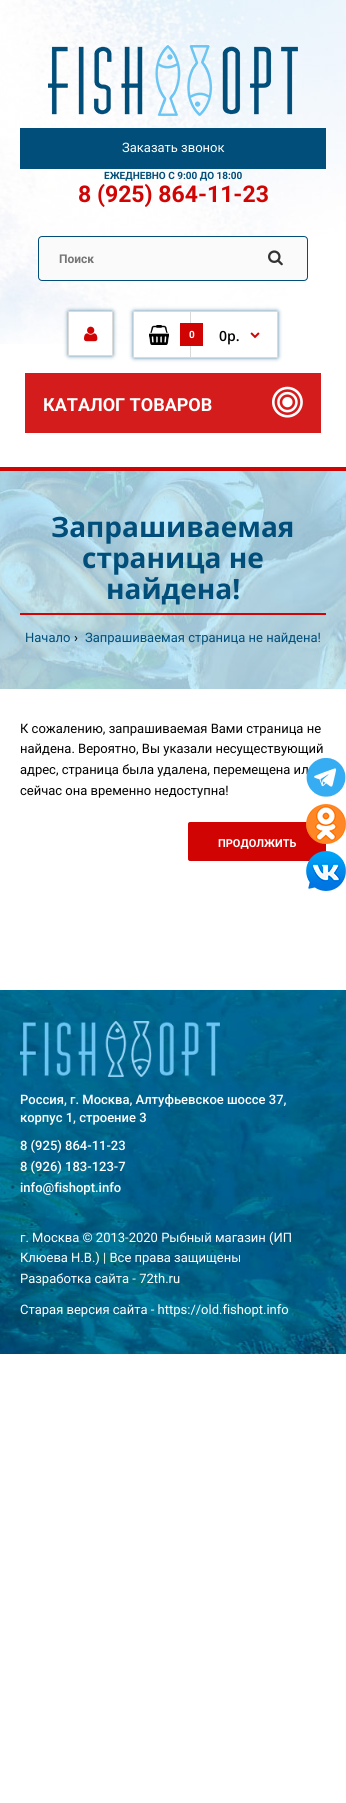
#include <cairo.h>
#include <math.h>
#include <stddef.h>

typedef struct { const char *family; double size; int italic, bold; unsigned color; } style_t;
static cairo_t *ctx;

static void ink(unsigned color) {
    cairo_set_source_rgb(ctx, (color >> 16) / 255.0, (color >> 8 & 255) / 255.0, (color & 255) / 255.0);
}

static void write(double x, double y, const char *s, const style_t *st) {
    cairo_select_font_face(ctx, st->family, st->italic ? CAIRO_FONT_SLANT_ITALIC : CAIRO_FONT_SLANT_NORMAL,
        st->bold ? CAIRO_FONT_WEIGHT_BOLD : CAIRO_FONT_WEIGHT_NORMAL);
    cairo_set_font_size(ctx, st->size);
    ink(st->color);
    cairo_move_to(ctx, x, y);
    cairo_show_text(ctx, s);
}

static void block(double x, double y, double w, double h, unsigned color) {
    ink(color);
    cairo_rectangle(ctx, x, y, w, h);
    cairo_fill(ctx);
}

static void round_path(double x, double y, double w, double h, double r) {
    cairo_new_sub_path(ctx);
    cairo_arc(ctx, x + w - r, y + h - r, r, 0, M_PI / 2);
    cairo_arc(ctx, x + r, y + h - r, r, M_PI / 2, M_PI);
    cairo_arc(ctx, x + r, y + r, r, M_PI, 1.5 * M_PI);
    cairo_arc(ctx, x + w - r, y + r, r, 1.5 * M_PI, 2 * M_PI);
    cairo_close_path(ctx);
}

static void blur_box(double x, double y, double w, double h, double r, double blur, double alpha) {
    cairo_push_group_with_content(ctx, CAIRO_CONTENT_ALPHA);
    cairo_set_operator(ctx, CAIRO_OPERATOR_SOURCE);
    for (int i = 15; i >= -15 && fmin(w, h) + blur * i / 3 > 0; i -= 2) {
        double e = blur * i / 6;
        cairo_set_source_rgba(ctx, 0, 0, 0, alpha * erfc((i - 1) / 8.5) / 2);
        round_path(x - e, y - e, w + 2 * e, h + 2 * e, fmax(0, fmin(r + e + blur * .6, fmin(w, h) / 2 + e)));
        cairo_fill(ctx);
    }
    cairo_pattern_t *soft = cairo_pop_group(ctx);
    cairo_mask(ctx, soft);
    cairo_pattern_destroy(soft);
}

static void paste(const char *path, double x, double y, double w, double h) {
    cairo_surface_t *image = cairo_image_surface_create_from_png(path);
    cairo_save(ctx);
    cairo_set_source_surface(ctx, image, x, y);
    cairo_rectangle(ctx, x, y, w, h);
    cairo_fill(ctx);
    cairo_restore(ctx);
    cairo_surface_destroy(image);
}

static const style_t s1 = {"Roboto", 13, 0, 0, 0xffffff};
static const style_t s2 = {"Roboto", 10, 0, 1, 0x004e79};
static const style_t s3 = {"Roboto", 23, 0, 1, 0xd10404};
static const style_t s4 = {"Roboto", 12, 0, 1, 0x757575};
static const style_t s5 = {"Roboto", 10, 0, 1, 0xffffff};
static const style_t s6 = {"Open Sans SemiBold", 14, 0, 0, 0x020202};
static const style_t s7 = {"Roboto", 18, 0, 1, 0xffffff};
static const style_t s8 = {"Open Sans", 28, 0, 1, 0x004e79};
static const style_t s9 = {"Roboto", 13, 0, 0, 0x004e79};
static const style_t s10 = {"Roboto", 13, 0, 0, 0x020202};
static const style_t s11 = {"Roboto", 11, 0, 1, 0xffffff};
static const style_t s12 = {"Roboto Medium", 13, 0, 0, 0xffffff};

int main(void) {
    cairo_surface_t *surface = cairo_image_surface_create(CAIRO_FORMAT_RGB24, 346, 1803);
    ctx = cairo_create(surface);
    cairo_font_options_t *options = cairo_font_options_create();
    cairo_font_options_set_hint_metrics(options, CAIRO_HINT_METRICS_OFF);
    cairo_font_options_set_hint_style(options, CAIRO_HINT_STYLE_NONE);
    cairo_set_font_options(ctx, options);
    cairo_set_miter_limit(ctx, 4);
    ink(0xffffff);
    cairo_paint(ctx);
    paste("pic1.png", 0, 0, 346, 344);
    paste("pic2.png", 48, 45, 250, 71);
    block(20, 128, 306, 41, 0x004e79);
    write(122, 152, "Заказать звонок", &s1);
    write(104, 179, "ЕЖЕДНЕВНО C 9:00 ДО 18:00", &s2);
    write(78, 202, "8 (925) 864-11-23", &s3);
    ink(0xfafafa);
    round_path(38.5, 236.5, 269, 44, 3.5);
    cairo_fill_preserve(ctx);
    ink(0x004e79);
    cairo_set_line_width(ctx, 1);
    cairo_stroke(ctx);
    write(59, 263, "Поиск", &s4);
    paste("pic3.png", 268, 250, 15, 16);
    ink(0x004e79);
    blur_box(69, 312, 43, 43, 0, 2.5, 1);
    ink(0xffffff);
    cairo_rectangle(ctx, 68.5, 311.5, 44, 44);
    cairo_fill_preserve(ctx);
    ink(0xdadada);
    cairo_stroke(ctx);
    paste("pic4.png", 84, 326, 14, 16);
    ink(0x004e79);
    blur_box(134, 312, 143, 45, 0, 2.5, 1);
    cairo_rectangle(ctx, 133.5, 311.5, 144, 46);
    ink(0xdadada);
    cairo_stroke(ctx);
    block(134, 312, 143, 45, 0xffffff);
    paste("pic5.png", 149, 325, 20, 20);
    block(190, 312, 1, 45, 0xd9d9d9);
    block(180, 323, 23, 23, 0xd10404);
    write(189, 338, "0", &s5);
    write(219, 341, "0р.", &s6);
    paste("pic6.png", 250, 332, 10, 7);
    block(25, 373, 296, 60, 0xd51c1c);
    write(43, 411, "КАТАЛОГ ТОВАРОВ", &s7);
    paste("pic7.png", 272, 386, 31, 32);
    block(0, 467, 346, 4, 0xd10404);
    paste("pic8.png", 0, 471, 346, 218);
    block(20, 613, 306, 2, 0xd10404);
    write(51, 537, "Запрашиваемая", &s8);
    write(82, 568, "страница не", &s8);
    write(106, 599, "найдена!", &s8);
    write(25, 642, "Начало", &s9);
    write(74, 642, "›", &s10);
    write(85, 642, "Запрашиваемая страница не найдена!", &s9);
    write(20, 733, "К сожалению, запрашиваемая Вами страница не", &s10);
    write(20, 753, "найдена. Вероятно, Вы указали несуществующий", &s10);
    write(20, 774, "адрес, страница была удалена, перемещена ил", &s10);
    write(20, 795, "сейчас она временно недоступна!", &s10);
    ink(0xd10404);
    round_path(188, 822, 138, 39, 2);
    cairo_fill(ctx);
    write(218, 847, "ПРОДОЛЖИТЬ", &s11);
    paste("pic9.png", 306, 758, 40, 39);
    paste("pic10.png", 306, 804, 40, 40);
    paste("pic11.png", 306, 851, 40, 40);
    paste("pic12.png", 0, 990, 346, 364);
    paste("pic13.png", 20, 1021, 200, 56);
    write(20, 1104, "Россия, г. Москва, Алтуфьевское шоссе 37,", &s12);
    write(20, 1122, "корпус 1, строение 3", &s12);
    write(20, 1150, "8 (925) 864-11-23", &s12);
    write(20, 1171, "8 (926) 183-123-7", &s12);
    write(20, 1192, "info@fishopt.info", &s12);
    write(20, 1242, "г. Москва © 2013-2020 Рыбный магазин (ИП", &s1);
    write(20, 1262, "Клюева Н.В.) | Все права защищены", &s1);
    write(20, 1283, "Разработка сайта - 72th.ru", &s1);
    write(20, 1314, "Старая версия сайта - https://old.fishopt.info", &s1);
    cairo_surface_write_to_png(surface, "screenshot.png");
    cairo_font_options_destroy(options);
    cairo_destroy(ctx);
    cairo_surface_destroy(surface);
    return 0;
}
